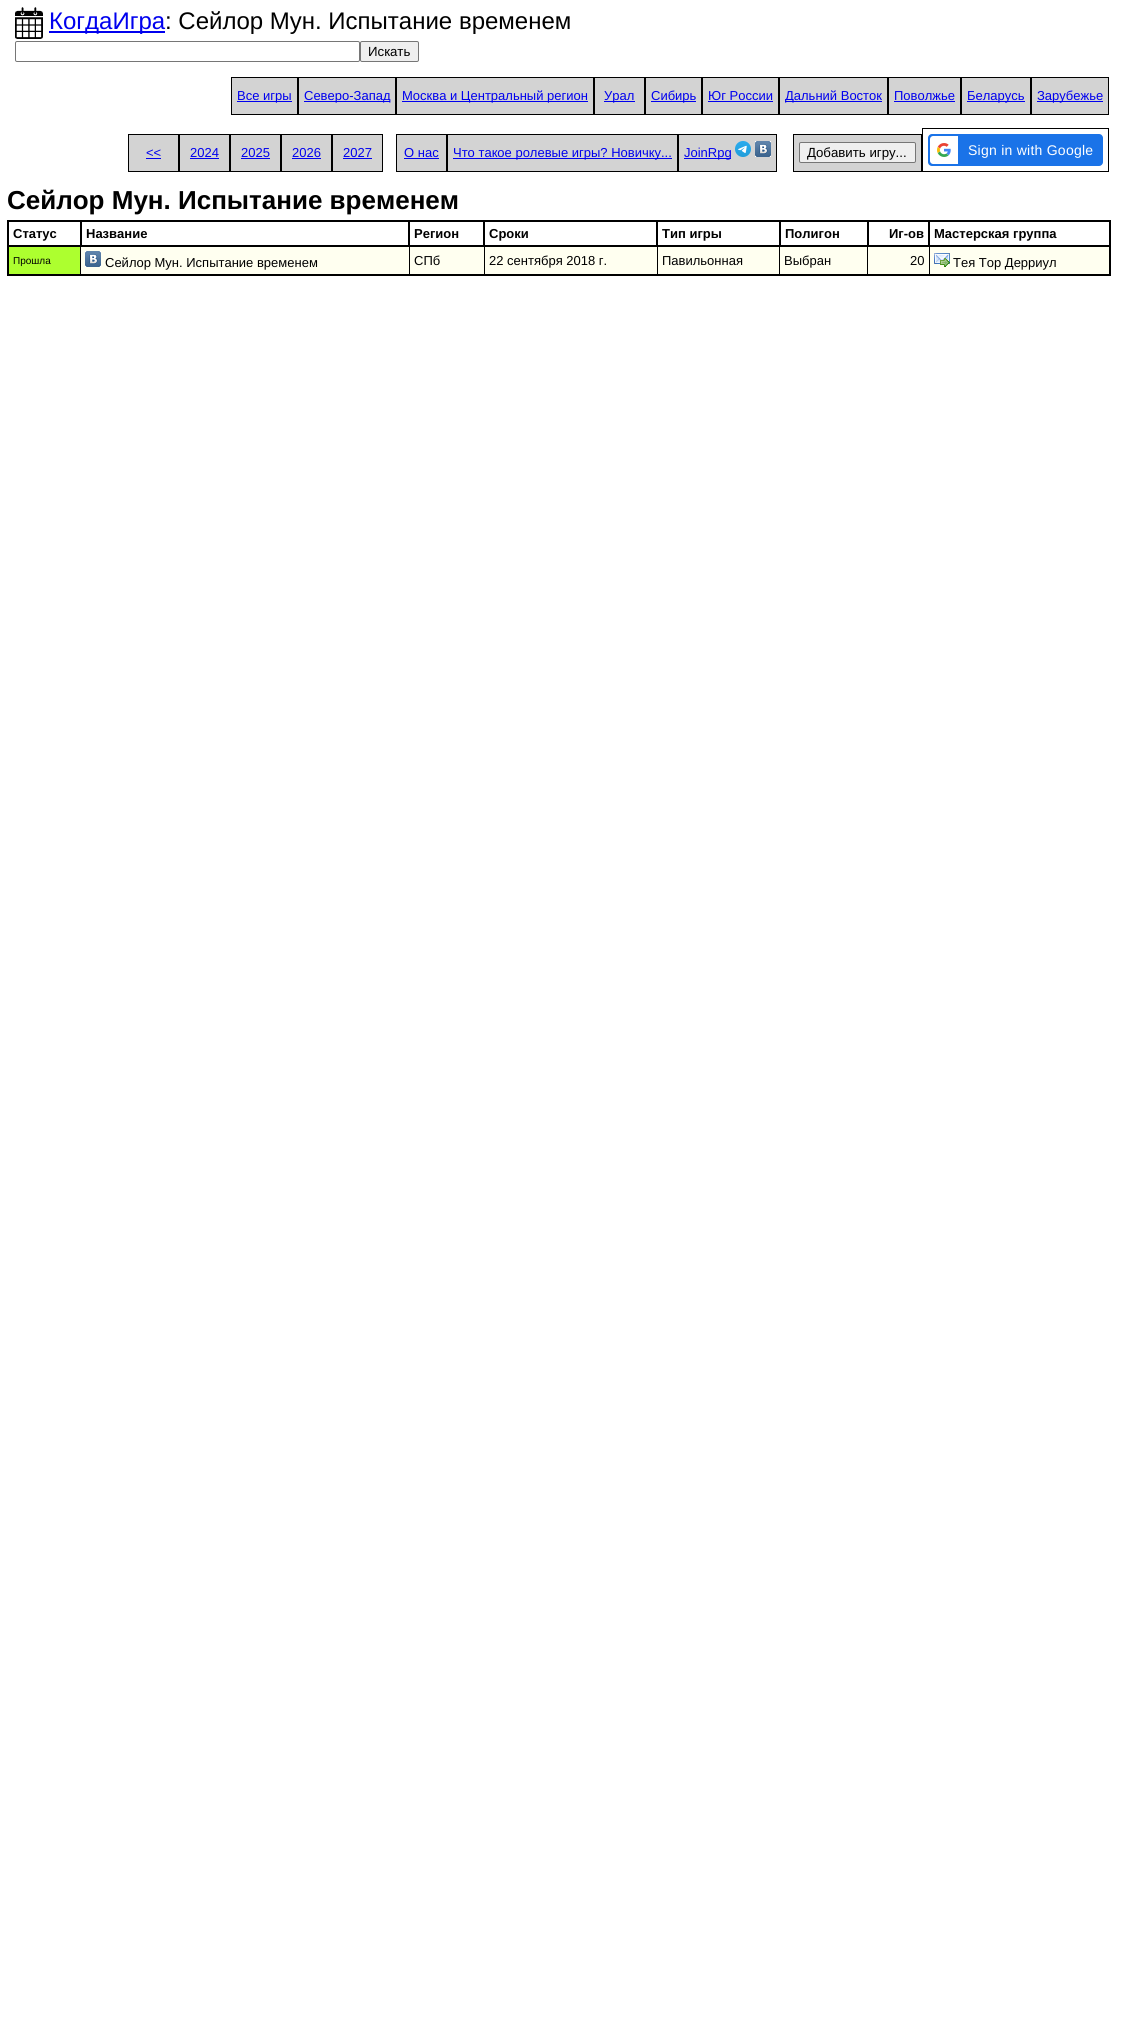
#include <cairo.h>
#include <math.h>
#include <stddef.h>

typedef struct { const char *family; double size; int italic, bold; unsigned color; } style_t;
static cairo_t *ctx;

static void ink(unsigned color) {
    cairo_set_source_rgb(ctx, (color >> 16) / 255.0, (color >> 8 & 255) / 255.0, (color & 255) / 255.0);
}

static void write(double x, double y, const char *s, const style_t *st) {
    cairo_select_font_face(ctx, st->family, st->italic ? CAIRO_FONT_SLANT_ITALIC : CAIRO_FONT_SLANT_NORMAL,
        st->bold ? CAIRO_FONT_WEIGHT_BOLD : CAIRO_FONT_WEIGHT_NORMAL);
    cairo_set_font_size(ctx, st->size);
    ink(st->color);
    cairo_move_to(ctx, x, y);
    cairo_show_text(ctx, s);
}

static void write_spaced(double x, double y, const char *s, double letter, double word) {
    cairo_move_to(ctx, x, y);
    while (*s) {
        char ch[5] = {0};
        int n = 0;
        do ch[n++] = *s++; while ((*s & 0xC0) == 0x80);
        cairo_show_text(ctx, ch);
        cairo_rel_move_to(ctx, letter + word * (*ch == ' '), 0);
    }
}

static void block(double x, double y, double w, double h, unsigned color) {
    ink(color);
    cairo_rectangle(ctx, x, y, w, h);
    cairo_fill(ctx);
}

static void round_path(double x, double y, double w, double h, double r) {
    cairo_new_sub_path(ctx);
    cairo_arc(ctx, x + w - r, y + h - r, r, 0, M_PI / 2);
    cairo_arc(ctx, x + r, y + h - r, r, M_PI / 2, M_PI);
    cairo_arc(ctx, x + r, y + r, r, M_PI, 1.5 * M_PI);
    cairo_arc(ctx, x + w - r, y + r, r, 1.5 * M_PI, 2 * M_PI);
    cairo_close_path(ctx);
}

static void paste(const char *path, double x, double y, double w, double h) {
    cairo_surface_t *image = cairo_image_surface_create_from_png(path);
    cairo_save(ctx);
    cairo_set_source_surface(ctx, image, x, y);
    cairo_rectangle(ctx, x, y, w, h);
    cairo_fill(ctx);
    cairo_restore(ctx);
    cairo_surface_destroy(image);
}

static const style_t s1 = {"Liberation Sans", 24, 0, 0, 0x0000ee};
static const style_t s2 = {"Liberation Sans", 24, 0, 0, 0x000000};
static const style_t s3 = {"Liberation Sans", 13.25, 0, 0, 0x000000};
static const style_t s4 = {"Liberation Sans", 13, 0, 0, 0x0000ee};
static const style_t s5 = {"Liberation Sans", 26, 0, 1, 0x000000};
static const style_t s6 = {"Liberation Sans", 13, 0, 1, 0x000000};
static const style_t s7 = {"Liberation Sans", 10, 0, 0, 0x000000};
static const style_t s8 = {"Liberation Sans", 13, 0, 0, 0x000000};

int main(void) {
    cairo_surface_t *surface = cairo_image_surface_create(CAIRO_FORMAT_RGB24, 1122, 2037);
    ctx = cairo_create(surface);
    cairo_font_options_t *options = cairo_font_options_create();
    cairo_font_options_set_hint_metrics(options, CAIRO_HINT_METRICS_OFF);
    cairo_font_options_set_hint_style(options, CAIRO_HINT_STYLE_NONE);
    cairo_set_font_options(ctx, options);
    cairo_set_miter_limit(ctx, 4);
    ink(0xffffff);
    cairo_paint(ctx);
    paste("pic1.png", 15, 7, 28, 32);
    block(49, 31, 116, 2, 0x0000ee);
    write(49, 29, "КогдаИгра", &s1);
    write(165, 29, ": Сейлор Мун. Испытание временем", &s2);
    round_path(15.5, 41.5, 344, 20, 1.5);
    ink(0x767676);
    cairo_set_line_width(ctx, 1);
    cairo_stroke(ctx);
    ink(0xefefef);
    round_path(360.5, 41.5, 58, 20, 1.5);
    cairo_fill_preserve(ctx);
    ink(0x767676);
    cairo_stroke(ctx);
    write(368, 56, "Искать", &s3);
    ink(0xd3d3d3);
    cairo_rectangle(ctx, 231.5, 77.5, 66, 37);
    cairo_fill_preserve(ctx);
    ink(0x000000);
    cairo_stroke(ctx);
    block(237, 101, 55, 1, 0x0000ee);
    write(237, 100, "Все игры", &s4);
    ink(0xd3d3d3);
    cairo_rectangle(ctx, 298.5, 77.5, 97, 37);
    cairo_fill_preserve(ctx);
    ink(0x000000);
    cairo_stroke(ctx);
    block(304, 101, 86, 1, 0x0000ee);
    write(304, 100, "Северо-Запад", &s4);
    ink(0xd3d3d3);
    cairo_rectangle(ctx, 396.5, 77.5, 197, 37);
    cairo_fill_preserve(ctx);
    ink(0x000000);
    cairo_stroke(ctx);
    block(402, 101, 186, 1, 0x0000ee);
    write(402, 100, "Москва и Центральный регион", &s4);
    ink(0xd3d3d3);
    cairo_rectangle(ctx, 594.5, 77.5, 50, 37);
    cairo_fill_preserve(ctx);
    ink(0x000000);
    cairo_stroke(ctx);
    block(604, 101, 31, 1, 0x0000ee);
    write(604, 100, "Урал", &s4);
    ink(0xd3d3d3);
    cairo_rectangle(ctx, 645.5, 77.5, 56, 37);
    cairo_fill_preserve(ctx);
    ink(0x000000);
    cairo_stroke(ctx);
    block(651, 101, 45, 1, 0x0000ee);
    write(651, 100, "Сибирь", &s4);
    ink(0xd3d3d3);
    cairo_rectangle(ctx, 702.5, 77.5, 76, 37);
    cairo_fill_preserve(ctx);
    ink(0x000000);
    cairo_stroke(ctx);
    write(708, 100, "Юг России", &s4);
    block(708, 101, 65, 1, 0x0000ee);
    ink(0xd3d3d3);
    cairo_rectangle(ctx, 779.5, 77.5, 108, 37);
    cairo_fill_preserve(ctx);
    ink(0x000000);
    cairo_stroke(ctx);
    block(785, 101, 97, 1, 0x0000ee);
    write(785, 100, "Дальний Восток", &s4);
    ink(0xd3d3d3);
    cairo_rectangle(ctx, 888.5, 77.5, 72, 37);
    cairo_fill_preserve(ctx);
    ink(0x000000);
    cairo_stroke(ctx);
    write(894, 100, "Поволжье", &s4);
    block(894, 101, 61, 1, 0x0000ee);
    ink(0xd3d3d3);
    cairo_rectangle(ctx, 961.5, 77.5, 69, 37);
    cairo_fill_preserve(ctx);
    ink(0x000000);
    cairo_stroke(ctx);
    block(967, 101, 58, 1, 0x0000ee);
    write(967, 100, "Беларусь", &s4);
    ink(0xd3d3d3);
    cairo_rectangle(ctx, 1031.5, 77.5, 77, 37);
    cairo_fill_preserve(ctx);
    ink(0x000000);
    cairo_stroke(ctx);
    block(1037, 101, 66, 1, 0x0000ee);
    write(1037, 100, "Зарубежье", &s4);
    ink(0xd3d3d3);
    cairo_rectangle(ctx, 128.5, 134.5, 50, 37);
    cairo_fill_preserve(ctx);
    ink(0x000000);
    cairo_stroke(ctx);
    write(146, 157, "<<", &s4);
    block(146, 158, 15, 1, 0x0000ee);
    ink(0xd3d3d3);
    cairo_rectangle(ctx, 179.5, 134.5, 50, 37);
    cairo_fill_preserve(ctx);
    ink(0x000000);
    cairo_stroke(ctx);
    write(190, 157, "2024", &s4);
    block(190, 158, 29, 1, 0x0000ee);
    ink(0xd3d3d3);
    cairo_rectangle(ctx, 230.5, 134.5, 50, 37);
    cairo_fill_preserve(ctx);
    ink(0x000000);
    cairo_stroke(ctx);
    write(241, 157, "2025", &s4);
    block(241, 158, 29, 1, 0x0000ee);
    ink(0xd3d3d3);
    cairo_rectangle(ctx, 281.5, 134.5, 50, 37);
    cairo_fill_preserve(ctx);
    ink(0x000000);
    cairo_stroke(ctx);
    write(292, 157, "2026", &s4);
    block(292, 158, 29, 1, 0x0000ee);
    ink(0xd3d3d3);
    cairo_rectangle(ctx, 332.5, 134.5, 50, 37);
    cairo_fill_preserve(ctx);
    ink(0x000000);
    cairo_stroke(ctx);
    write(343, 157, "2027", &s4);
    block(343, 158, 29, 1, 0x0000ee);
    ink(0xd3d3d3);
    cairo_rectangle(ctx, 396.5, 134.5, 50, 37);
    cairo_fill_preserve(ctx);
    ink(0x000000);
    cairo_stroke(ctx);
    write(404, 157, "О нас", &s4);
    block(404, 158, 35, 1, 0x0000ee);
    ink(0xd3d3d3);
    cairo_rectangle(ctx, 447.5, 134.5, 230, 37);
    cairo_fill_preserve(ctx);
    ink(0x000000);
    cairo_stroke(ctx);
    block(453, 158, 219, 1, 0x0000ee);
    write(453, 157, "Что такое ролевые игры? Новичку...", &s4);
    ink(0xd3d3d3);
    cairo_rectangle(ctx, 678.5, 134.5, 98, 37);
    cairo_fill_preserve(ctx);
    ink(0x000000);
    cairo_stroke(ctx);
    block(684, 158, 47, 1, 0x0000ee);
    write(684, 157, "JoinRpg", &s4);
    paste("pic2.png", 735, 141, 16, 16);
    paste("pic3.png", 755, 141, 16, 16);
    ink(0xd3d3d3);
    cairo_rectangle(ctx, 793.5, 134.5, 128, 37);
    cairo_fill_preserve(ctx);
    ink(0x000000);
    cairo_stroke(ctx);
    ink(0xefefef);
    round_path(799.5, 142.5, 116, 20, 1.5);
    cairo_fill_preserve(ctx);
    ink(0x767676);
    cairo_stroke(ctx);
    write(807, 157, "Добавить игру...", &s3);
    cairo_rectangle(ctx, 922.5, 128.5, 186, 43);
    cairo_stroke(ctx);
    ink(0x1a73e8);
    round_path(928, 134, 175, 32, 4);
    cairo_fill(ctx);
    ink(0xffffff);
    cairo_new_path(ctx);
    cairo_move_to(ctx, 933, 136);
    cairo_line_to(ctx, 958, 136);
    cairo_line_to(ctx, 958, 164);
    cairo_line_to(ctx, 933, 164);
    cairo_curve_to(ctx, 931.5, 164, 930, 162.5, 930, 161);
    cairo_line_to(ctx, 930, 139);
    cairo_curve_to(ctx, 930, 137.5, 931.5, 136, 933, 136);
    cairo_close_path(ctx);
    cairo_fill(ctx);
    paste("pic4.png", 937, 143, 14, 14);
    cairo_set_font_size(ctx, 14);
    write_spaced(968, 155, "Sign in with Google", 0.25, 0);
    write(7, 209, "Сейлор Мун. Испытание временем", &s5);
    block(7, 220, 1104, 2, 0x000000);
    block(1109, 220, 2, 56, 0x000000);
    block(80, 246, 1, 30, 0x000000);
    block(81, 247, 1028, 27, 0xfffff0);
    block(409, 246, 1, 30, 0x000000);
    block(484, 246, 1, 30, 0x000000);
    block(657, 246, 1, 30, 0x000000);
    block(779, 246, 1, 30, 0x000000);
    block(867, 246, 1, 30, 0x000000);
    block(929, 246, 1, 30, 0x000000);
    block(7, 274, 1104, 2, 0x000000);
    block(7, 220, 2, 56, 0x000000);
    block(928, 245, 183, 2, 0x000000);
    block(928, 220, 2, 27, 0x000000);
    block(867, 245, 63, 2, 0x000000);
    block(867, 220, 2, 27, 0x000000);
    block(779, 245, 90, 2, 0x000000);
    block(779, 220, 2, 27, 0x000000);
    block(656, 245, 125, 2, 0x000000);
    block(656, 220, 2, 27, 0x000000);
    block(483, 245, 175, 2, 0x000000);
    block(483, 220, 2, 27, 0x000000);
    block(408, 245, 77, 2, 0x000000);
    block(408, 220, 2, 27, 0x000000);
    block(80, 245, 330, 2, 0x000000);
    block(80, 220, 2, 27, 0x000000);
    block(7, 245, 75, 2, 0x000000);
    write(13, 238, "Статус", &s6);
    write(86, 238, "Название", &s6);
    write(414, 238, "Регион", &s6);
    write(489, 238, "Сроки", &s6);
    write(662, 238, "Тип игры", &s6);
    write(785, 238, "Полигон", &s6);
    write(889, 238, "Иг-ов", &s6);
    write(934, 238, "Мастерская группа", &s6);
    block(9, 247, 71, 27, 0xadff2f);
    write(13, 264, "Прошла", &s7);
    paste("pic3.png", 85, 251, 16, 16);
    write(105, 267, "Сейлор Мун. Испытание временем", &s8);
    write(414, 265, "СПб", &s8);
    write(489, 265, "22 сентября 2018 г.", &s8);
    write(662, 265, "Павильонная", &s8);
    write(784, 265, "Выбран", &s8);
    write(910, 265, "20", &s8);
    paste("pic5.png", 934, 253, 16, 14);
    write(953, 267, "Тея Тор Дерриул", &s8);
    cairo_surface_write_to_png(surface, "screenshot.png");
    cairo_font_options_destroy(options);
    cairo_destroy(ctx);
    cairo_surface_destroy(surface);
    return 0;
}
